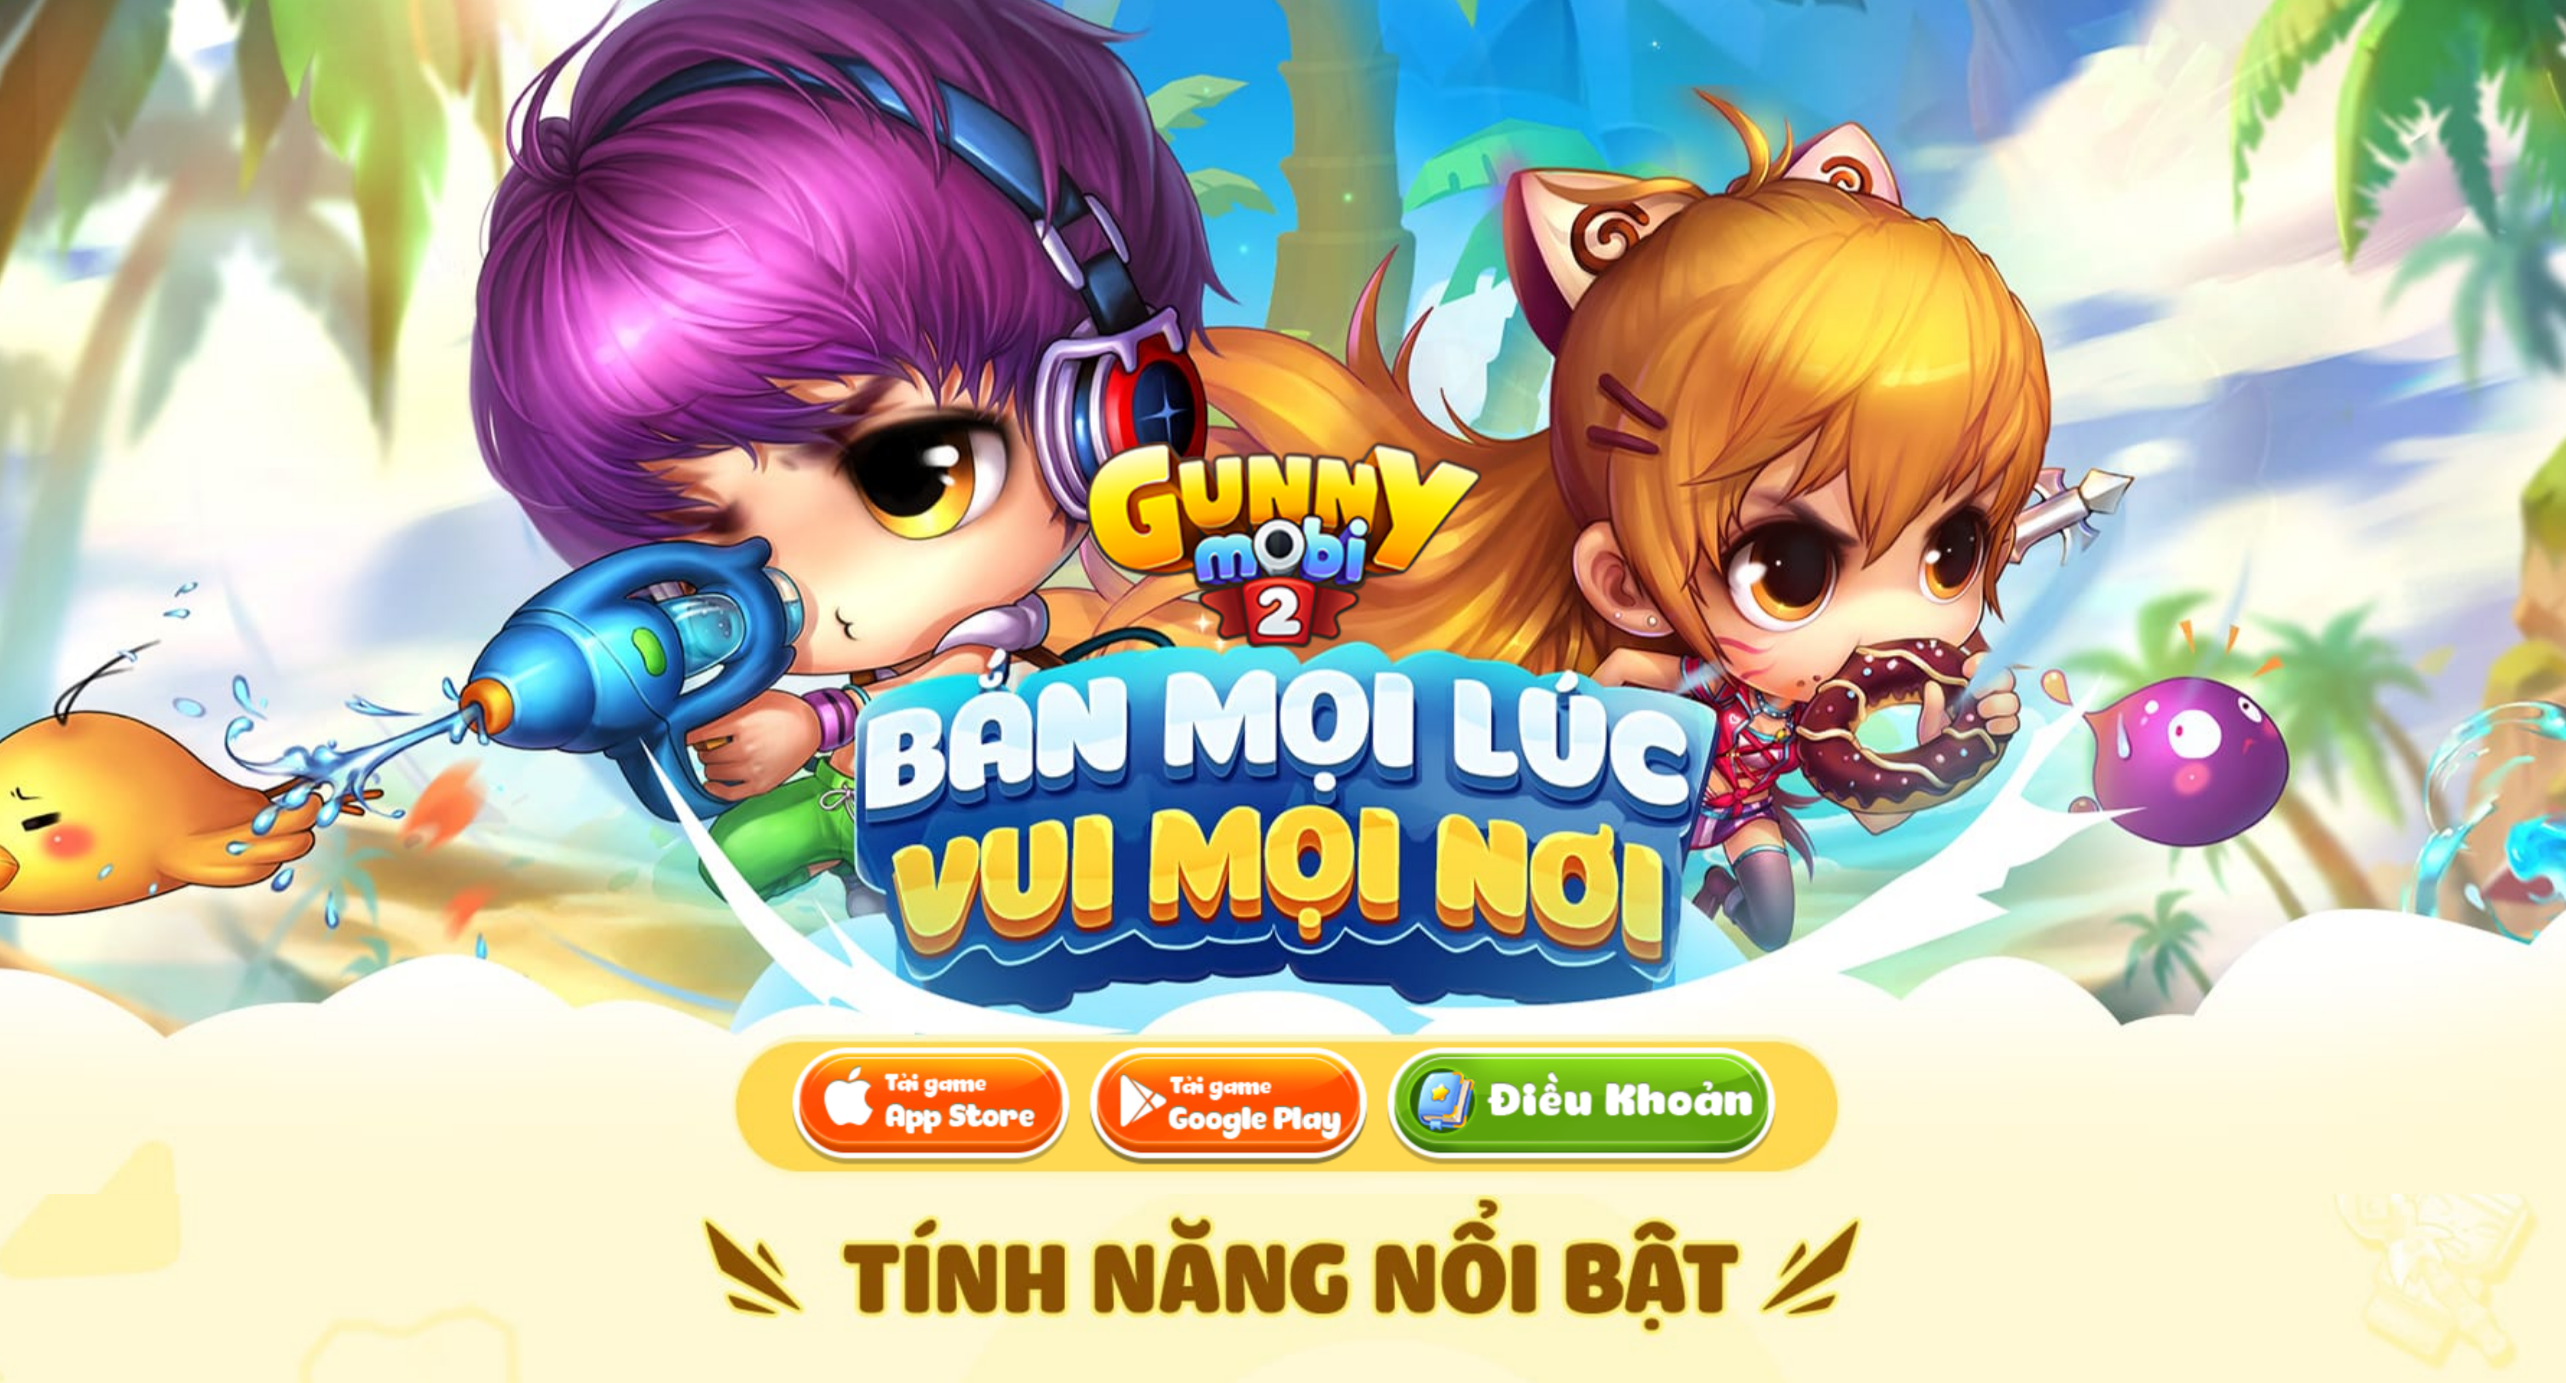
#include <cairo.h>
#include <math.h>
#include <stddef.h>

static cairo_t *ctx;

static void ink(unsigned color) {
    cairo_set_source_rgb(ctx, (color >> 16) / 255.0, (color >> 8 & 255) / 255.0, (color & 255) / 255.0);
}

static void paste(const char *path, double x, double y, double w, double h) {
    cairo_surface_t *image = cairo_image_surface_create_from_png(path);
    cairo_save(ctx);
    cairo_set_source_surface(ctx, image, x, y);
    cairo_rectangle(ctx, x, y, w, h);
    cairo_fill(ctx);
    cairo_restore(ctx);
    cairo_surface_destroy(image);
}

int main(void) {
    cairo_surface_t *surface = cairo_image_surface_create(CAIRO_FORMAT_RGB24, 2566, 1383);
    ctx = cairo_create(surface);
    cairo_font_options_t *options = cairo_font_options_create();
    cairo_font_options_set_hint_metrics(options, CAIRO_HINT_METRICS_OFF);
    cairo_font_options_set_hint_style(options, CAIRO_HINT_STYLE_NONE);
    cairo_set_font_options(ctx, options);
    cairo_set_miter_limit(ctx, 4);
    ink(0xffffff);
    cairo_paint(ctx);
    paste("pic1.png", 0, 0, 2566, 1195);
    paste("pic2.png", 1086, 441, 396, 208);
    paste("pic3.png", 792, 1047, 278, 118);
    paste("pic4.png", 1089, 1047, 279, 118);
    paste("pic5.png", 1387, 1047, 389, 118);
    paste("pic6.png", 0, 1194, 2566, 189);
    cairo_surface_write_to_png(surface, "screenshot.png");
    cairo_font_options_destroy(options);
    cairo_destroy(ctx);
    cairo_surface_destroy(surface);
    return 0;
}
